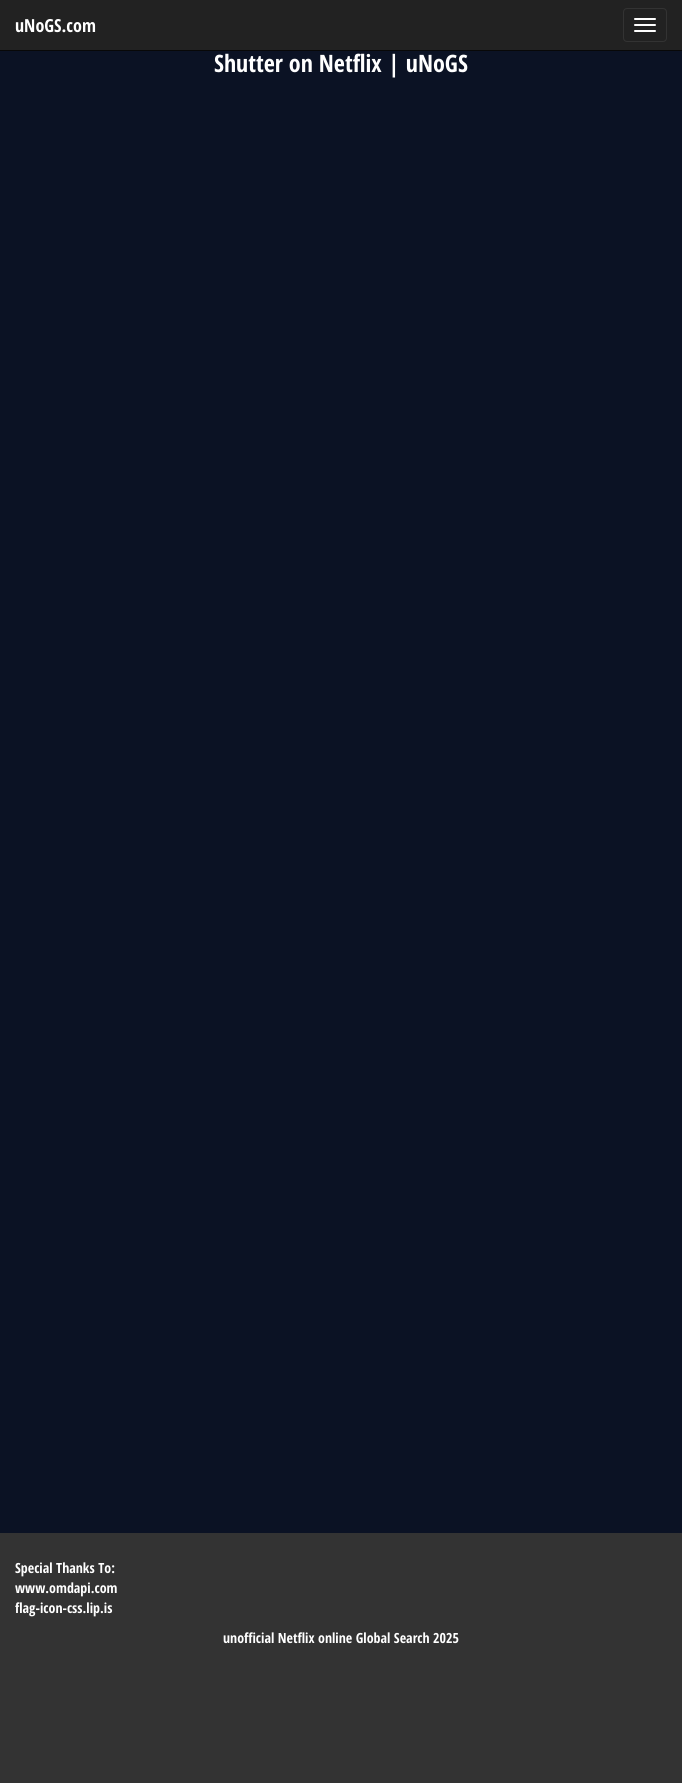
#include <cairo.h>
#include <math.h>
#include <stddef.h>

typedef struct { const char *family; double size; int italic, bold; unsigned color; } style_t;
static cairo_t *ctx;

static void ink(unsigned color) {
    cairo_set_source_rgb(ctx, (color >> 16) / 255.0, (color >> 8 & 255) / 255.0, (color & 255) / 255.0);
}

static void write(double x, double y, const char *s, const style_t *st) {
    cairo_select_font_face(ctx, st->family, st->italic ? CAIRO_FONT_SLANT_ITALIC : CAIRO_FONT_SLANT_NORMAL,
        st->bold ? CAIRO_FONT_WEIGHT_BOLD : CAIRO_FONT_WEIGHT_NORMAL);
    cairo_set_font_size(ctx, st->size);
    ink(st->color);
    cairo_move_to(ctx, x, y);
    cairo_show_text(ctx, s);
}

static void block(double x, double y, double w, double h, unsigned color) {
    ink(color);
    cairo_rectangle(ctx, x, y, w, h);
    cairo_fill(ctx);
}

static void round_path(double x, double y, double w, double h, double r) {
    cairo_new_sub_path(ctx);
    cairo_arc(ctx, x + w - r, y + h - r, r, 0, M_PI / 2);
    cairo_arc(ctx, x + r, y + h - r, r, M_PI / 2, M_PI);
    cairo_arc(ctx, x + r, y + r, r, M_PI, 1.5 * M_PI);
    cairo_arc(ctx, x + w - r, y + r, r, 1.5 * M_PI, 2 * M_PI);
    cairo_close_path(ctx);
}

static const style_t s1 = {"Open Sans Condensed", 18, 0, 1, 0xffffff};
static const style_t s2 = {"Open Sans Condensed", 24, 0, 1, 0xffffff};
static const style_t s3 = {"Open Sans Condensed", 14, 0, 1, 0xffffff};

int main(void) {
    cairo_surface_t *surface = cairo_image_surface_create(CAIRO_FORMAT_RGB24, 682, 1783);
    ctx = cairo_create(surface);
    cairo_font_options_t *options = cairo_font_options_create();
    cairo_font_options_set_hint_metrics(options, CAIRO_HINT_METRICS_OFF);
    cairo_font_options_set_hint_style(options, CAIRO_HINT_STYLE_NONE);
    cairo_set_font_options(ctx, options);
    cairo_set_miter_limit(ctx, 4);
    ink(0x0b1224);
    cairo_paint(ctx);
    block(0, 0, 682, 50, 0x222222);
    block(0, 50, 682, 1, 0x080808);
    write(15, 32, "uNoGS.com", &s1);
    round_path(623.5, 8.5, 43, 33, 3.5);
    ink(0x333333);
    cairo_set_line_width(ctx, 1);
    cairo_stroke(ctx);
    ink(0xffffff);
    round_path(634, 18, 22, 2, 1);
    cairo_fill(ctx);
    round_path(634, 24, 22, 2, 1);
    cairo_fill(ctx);
    round_path(634, 30, 22, 2, 1);
    cairo_fill(ctx);
    write(214, 72, "Shutter on Netflix | uNoGS", &s2);
    block(0, 1533, 682, 250, 0x333333);
    write(15, 1573, "Special Thanks To:", &s3);
    write(15, 1593, "www.omdapi.com", &s3);
    write(15, 1613, "flag-icon-css.lip.is", &s3);
    write(223, 1643, "unofficial Netflix online Global Search 2025", &s3);
    cairo_surface_write_to_png(surface, "screenshot.png");
    cairo_font_options_destroy(options);
    cairo_destroy(ctx);
    cairo_surface_destroy(surface);
    return 0;
}
